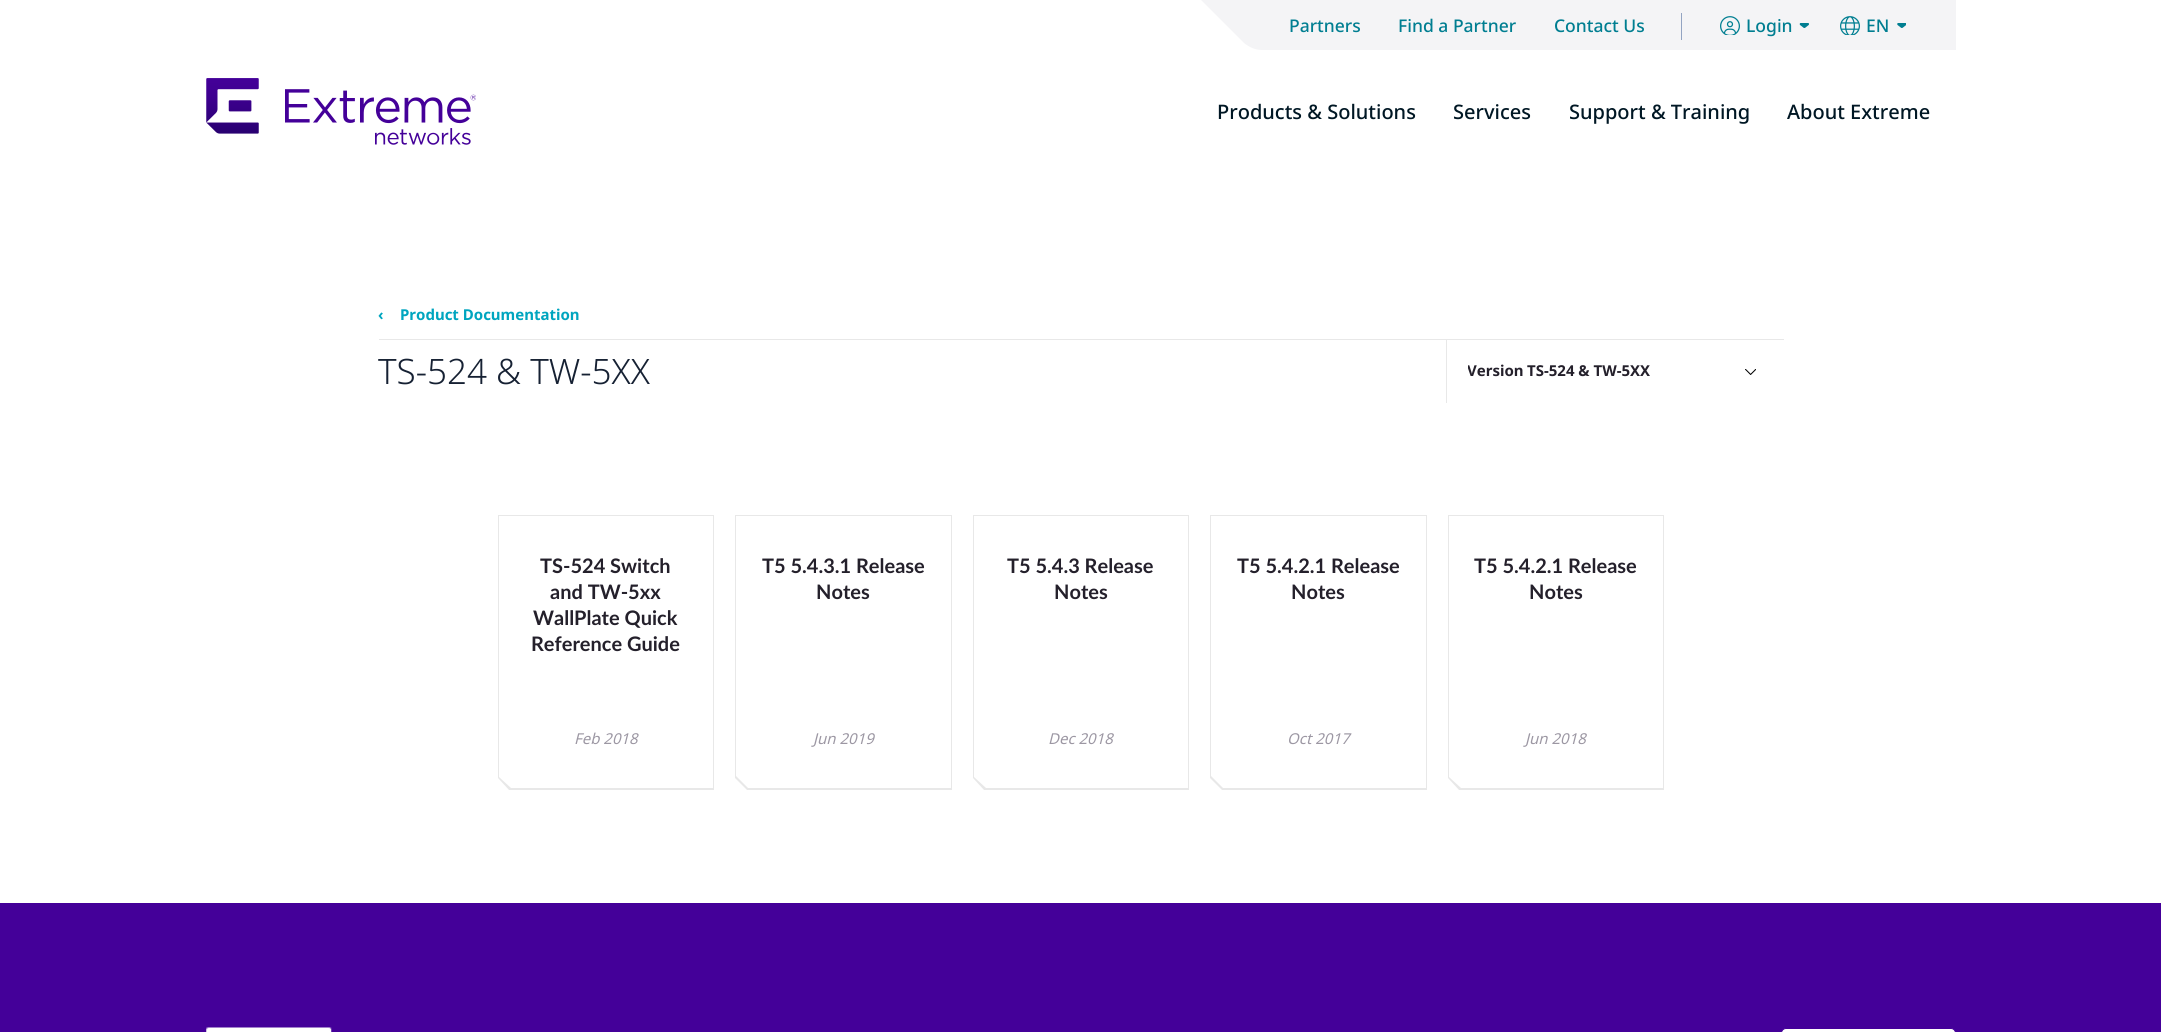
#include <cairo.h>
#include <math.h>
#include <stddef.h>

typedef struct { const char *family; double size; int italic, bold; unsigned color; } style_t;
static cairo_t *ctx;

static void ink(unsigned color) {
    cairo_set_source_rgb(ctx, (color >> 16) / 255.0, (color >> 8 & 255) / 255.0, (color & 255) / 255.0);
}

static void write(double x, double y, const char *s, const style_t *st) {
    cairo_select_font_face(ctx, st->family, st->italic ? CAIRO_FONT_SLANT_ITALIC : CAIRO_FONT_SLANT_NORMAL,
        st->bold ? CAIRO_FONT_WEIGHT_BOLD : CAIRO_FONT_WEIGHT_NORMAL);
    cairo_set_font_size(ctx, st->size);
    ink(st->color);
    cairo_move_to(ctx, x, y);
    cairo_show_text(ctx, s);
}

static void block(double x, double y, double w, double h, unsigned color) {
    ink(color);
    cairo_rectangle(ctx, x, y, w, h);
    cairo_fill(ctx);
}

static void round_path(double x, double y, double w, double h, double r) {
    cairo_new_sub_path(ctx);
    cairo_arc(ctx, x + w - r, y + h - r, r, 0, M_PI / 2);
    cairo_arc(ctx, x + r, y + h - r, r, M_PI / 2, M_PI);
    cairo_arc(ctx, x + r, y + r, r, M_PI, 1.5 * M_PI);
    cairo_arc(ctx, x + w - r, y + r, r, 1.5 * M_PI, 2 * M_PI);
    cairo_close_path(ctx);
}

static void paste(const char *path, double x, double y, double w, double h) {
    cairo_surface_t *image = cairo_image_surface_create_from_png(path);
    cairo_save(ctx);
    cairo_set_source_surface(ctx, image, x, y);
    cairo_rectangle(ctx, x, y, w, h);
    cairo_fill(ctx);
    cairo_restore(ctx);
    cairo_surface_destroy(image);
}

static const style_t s1 = {"Noto Sans Medium", 17.5, 0, 0, 0x007e91};
static const style_t s2 = {"Noto Sans Medium", 20, 0, 0, 0x001724};
static const style_t s3 = {"Noto Sans", 15, 0, 1, 0x00a5bf};
static const style_t s4 = {"Noto Sans Light", 35, 0, 0, 0x162133};
static const style_t s5 = {"Noto Sans", 15, 0, 1, 0x24202b};
static const style_t s6 = {"Lato", 20, 0, 1, 0x24202b};
static const style_t s7 = {"Noto Sans", 15, 1, 0, 0x9c97a3};

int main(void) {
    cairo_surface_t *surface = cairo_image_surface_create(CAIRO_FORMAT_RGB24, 2161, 1032);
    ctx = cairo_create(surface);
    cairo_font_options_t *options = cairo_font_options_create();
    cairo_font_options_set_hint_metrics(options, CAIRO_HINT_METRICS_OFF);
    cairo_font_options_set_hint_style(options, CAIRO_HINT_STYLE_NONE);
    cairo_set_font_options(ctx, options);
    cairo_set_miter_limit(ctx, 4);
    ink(0xffffff);
    cairo_paint(ctx);
    cairo_save(ctx);
    cairo_rectangle(ctx, 1201, 0, 755, 50);
    cairo_clip(ctx);
    ink(0xf4f4f6);
    cairo_new_path(ctx);
    cairo_move_to(ctx, 1201, 0);
    cairo_line_to(ctx, 1244, 43);
    cairo_curve_to(ctx, 1249, 47, 1255, 50, 1262, 50);
    cairo_line_to(ctx, 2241, 50);
    cairo_line_to(ctx, 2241, 0);
    cairo_close_path(ctx);
    cairo_fill(ctx);
    cairo_restore(ctx);
    write(1289, 32, "Partners", &s1);
    write(1398, 32, "Find a Partner", &s1);
    write(1554, 32, "Contact Us", &s1);
    block(1681, 13, 1, 27, 0x93a4c2);
    paste("pic1.png", 1720, 16, 20, 19);
    write(1746, 32, "Login", &s1);
    paste("pic2.png", 1799, 23, 10, 5);
    paste("pic3.png", 1840, 16, 20, 19);
    write(1866, 32, "EN", &s1);
    paste("pic4.png", 1897, 23, 9, 5);
    paste("pic5.png", 206, 78, 270, 67);
    write(1217, 119, "Products & Solutions", &s2);
    write(1453, 119, "Services", &s2);
    write(1569, 119, "Support & Training", &s2);
    write(1787, 119, "About Extreme", &s2);
    block(379, 339, 1405, 1, 0xe8e8e8);
    write(378, 320, "‹", &s3);
    write(400, 320, "Product Documentation", &s3);
    write(378, 384, "TS-524 & TW-5XX", &s4);
    block(1446, 340, 1, 63, 0xe8e8e8);
    cairo_save(ctx);
    cairo_rectangle(ctx, 1468, 340, 296, 63);
    cairo_clip(ctx);
    write(1467, 376, "Version", &s5);
    cairo_restore(ctx);
    write(1527, 376, "TS-524 & TW-5XX", &s5);
    paste("pic6.png", 1745, 369, 11, 6);
    ink(0xe8e8e8);
    cairo_new_path(ctx);
    cairo_move_to(ctx, 498, 515);
    cairo_line_to(ctx, 714, 515);
    cairo_line_to(ctx, 714, 790);
    cairo_line_to(ctx, 509, 790);
    cairo_line_to(ctx, 498, 778);
    cairo_close_path(ctx);
    cairo_fill(ctx);
    ink(0xffffff);
    cairo_new_path(ctx);
    cairo_move_to(ctx, 499, 516);
    cairo_line_to(ctx, 713, 516);
    cairo_line_to(ctx, 713, 788);
    cairo_line_to(ctx, 511, 788);
    cairo_line_to(ctx, 499, 777);
    cairo_close_path(ctx);
    cairo_fill(ctx);
    write(540, 573, "TS-524 Switch", &s6);
    write(550, 599, "and TW-5xx", &s6);
    write(533, 625, "WallPlate Quick", &s6);
    write(531, 651, "Reference Guide", &s6);
    write(574, 744, "Feb 2018", &s7);
    ink(0xe8e8e8);
    cairo_new_path(ctx);
    cairo_move_to(ctx, 735, 515);
    cairo_line_to(ctx, 952, 515);
    cairo_line_to(ctx, 952, 790);
    cairo_line_to(ctx, 747, 790);
    cairo_line_to(ctx, 735, 778);
    cairo_close_path(ctx);
    cairo_fill(ctx);
    ink(0xffffff);
    cairo_new_path(ctx);
    cairo_move_to(ctx, 736, 516);
    cairo_line_to(ctx, 951, 516);
    cairo_line_to(ctx, 951, 788);
    cairo_line_to(ctx, 748, 788);
    cairo_line_to(ctx, 736, 776);
    cairo_close_path(ctx);
    cairo_fill(ctx);
    write(762, 573, "T5 5.4.3.1 Release", &s6);
    write(816, 599, "Notes", &s6);
    write(813, 744, "Jun 2019", &s7);
    ink(0xe8e8e8);
    cairo_new_path(ctx);
    cairo_move_to(ctx, 973, 515);
    cairo_line_to(ctx, 1189, 515);
    cairo_line_to(ctx, 1189, 790);
    cairo_line_to(ctx, 984, 790);
    cairo_line_to(ctx, 973, 778);
    cairo_close_path(ctx);
    cairo_fill(ctx);
    ink(0xffffff);
    cairo_new_path(ctx);
    cairo_move_to(ctx, 974, 516);
    cairo_line_to(ctx, 1188, 516);
    cairo_line_to(ctx, 1188, 788);
    cairo_line_to(ctx, 986, 788);
    cairo_line_to(ctx, 974, 777);
    cairo_close_path(ctx);
    cairo_fill(ctx);
    write(1007, 573, "T5 5.4.3 Release", &s6);
    write(1054, 599, "Notes", &s6);
    write(1048, 744, "Dec 2018", &s7);
    ink(0xe8e8e8);
    cairo_new_path(ctx);
    cairo_move_to(ctx, 1210, 515);
    cairo_line_to(ctx, 1427, 515);
    cairo_line_to(ctx, 1427, 790);
    cairo_line_to(ctx, 1222, 790);
    cairo_line_to(ctx, 1210, 778);
    cairo_close_path(ctx);
    cairo_fill(ctx);
    ink(0xffffff);
    cairo_new_path(ctx);
    cairo_move_to(ctx, 1211, 516);
    cairo_line_to(ctx, 1426, 516);
    cairo_line_to(ctx, 1426, 788);
    cairo_line_to(ctx, 1223, 788);
    cairo_line_to(ctx, 1211, 776);
    cairo_close_path(ctx);
    cairo_fill(ctx);
    write(1237, 573, "T5 5.4.2.1 Release", &s6);
    write(1291, 599, "Notes", &s6);
    write(1287, 744, "Oct 2017", &s7);
    ink(0xe8e8e8);
    cairo_new_path(ctx);
    cairo_move_to(ctx, 1448, 515);
    cairo_line_to(ctx, 1664, 515);
    cairo_line_to(ctx, 1664, 790);
    cairo_line_to(ctx, 1459, 790);
    cairo_line_to(ctx, 1448, 778);
    cairo_close_path(ctx);
    cairo_fill(ctx);
    ink(0xffffff);
    cairo_new_path(ctx);
    cairo_move_to(ctx, 1449, 516);
    cairo_line_to(ctx, 1663, 516);
    cairo_line_to(ctx, 1663, 788);
    cairo_line_to(ctx, 1461, 788);
    cairo_line_to(ctx, 1449, 777);
    cairo_close_path(ctx);
    cairo_fill(ctx);
    write(1474, 573, "T5 5.4.2.1 Release", &s6);
    write(1529, 599, "Notes", &s6);
    write(1525, 744, "Jun 2018", &s7);
    block(0, 903, 2161, 129, 0x440099);
    paste("pic7.png", 206, 1027, 126, 5);
    ink(0xffffff);
    round_path(1781.5, 1028.5, 174, 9, 4.5);
    cairo_fill_preserve(ctx);
    ink(0x440099);
    cairo_set_line_width(ctx, 1);
    cairo_stroke(ctx);
    cairo_surface_write_to_png(surface, "screenshot.png");
    cairo_font_options_destroy(options);
    cairo_destroy(ctx);
    cairo_surface_destroy(surface);
    return 0;
}
